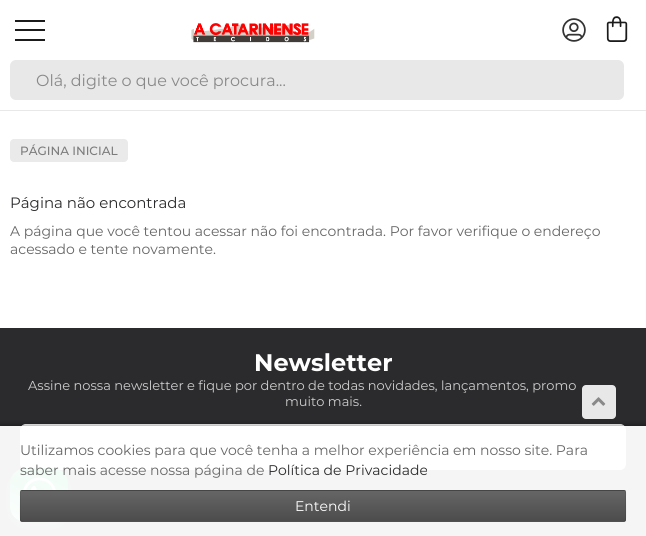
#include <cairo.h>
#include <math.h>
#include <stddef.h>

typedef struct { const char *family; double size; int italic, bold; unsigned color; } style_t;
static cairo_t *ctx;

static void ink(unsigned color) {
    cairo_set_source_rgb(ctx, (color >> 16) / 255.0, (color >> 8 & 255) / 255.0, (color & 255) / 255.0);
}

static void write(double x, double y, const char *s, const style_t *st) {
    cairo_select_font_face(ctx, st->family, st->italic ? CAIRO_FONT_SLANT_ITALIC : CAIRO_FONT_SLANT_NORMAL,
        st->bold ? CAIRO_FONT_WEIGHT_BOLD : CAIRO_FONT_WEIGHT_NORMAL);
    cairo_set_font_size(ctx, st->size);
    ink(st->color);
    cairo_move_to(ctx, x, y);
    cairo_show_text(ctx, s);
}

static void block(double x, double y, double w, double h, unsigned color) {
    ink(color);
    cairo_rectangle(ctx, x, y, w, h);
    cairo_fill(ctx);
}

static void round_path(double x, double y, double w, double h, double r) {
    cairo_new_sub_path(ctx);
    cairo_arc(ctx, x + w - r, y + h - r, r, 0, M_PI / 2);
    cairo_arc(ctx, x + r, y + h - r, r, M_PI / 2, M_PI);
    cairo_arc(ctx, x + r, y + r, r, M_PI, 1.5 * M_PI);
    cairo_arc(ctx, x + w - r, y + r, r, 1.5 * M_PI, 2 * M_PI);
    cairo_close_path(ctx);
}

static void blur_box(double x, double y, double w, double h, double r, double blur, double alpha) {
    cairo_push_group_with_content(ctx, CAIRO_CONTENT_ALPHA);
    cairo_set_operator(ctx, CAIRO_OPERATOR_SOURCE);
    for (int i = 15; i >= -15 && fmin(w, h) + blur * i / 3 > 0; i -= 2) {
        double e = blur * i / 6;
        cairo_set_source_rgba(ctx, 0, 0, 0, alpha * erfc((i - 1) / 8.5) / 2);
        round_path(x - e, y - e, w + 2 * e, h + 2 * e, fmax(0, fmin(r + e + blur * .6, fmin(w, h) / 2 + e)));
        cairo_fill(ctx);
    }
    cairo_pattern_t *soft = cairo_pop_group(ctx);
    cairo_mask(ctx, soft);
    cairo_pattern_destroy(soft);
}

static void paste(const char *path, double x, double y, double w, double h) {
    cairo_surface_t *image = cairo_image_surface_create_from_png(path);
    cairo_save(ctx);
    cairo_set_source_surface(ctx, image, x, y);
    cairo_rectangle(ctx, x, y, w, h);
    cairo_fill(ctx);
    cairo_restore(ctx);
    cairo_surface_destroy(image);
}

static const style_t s1 = {"Montserrat", 16, 0, 0, 0x8a898a};
static const style_t s2 = {"Montserrat Medium", 12, 0, 0, 0x7c7c7c};
static const style_t s3 = {"Montserrat", 15, 0, 0, 0x2b2a2c};
static const style_t s4 = {"Montserrat", 14, 0, 0, 0x666666};
static const style_t s5 = {"Montserrat", 24, 0, 1, 0xffffff};
static const style_t s6 = {"Montserrat", 13, 0, 0, 0xcecece};
static const style_t s7 = {"Montserrat", 14, 0, 0, 0x2b2a2c};
static const style_t s8 = {"Montserrat", 14, 0, 0, 0xffffff};

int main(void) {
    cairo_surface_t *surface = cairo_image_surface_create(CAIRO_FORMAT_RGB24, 646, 536);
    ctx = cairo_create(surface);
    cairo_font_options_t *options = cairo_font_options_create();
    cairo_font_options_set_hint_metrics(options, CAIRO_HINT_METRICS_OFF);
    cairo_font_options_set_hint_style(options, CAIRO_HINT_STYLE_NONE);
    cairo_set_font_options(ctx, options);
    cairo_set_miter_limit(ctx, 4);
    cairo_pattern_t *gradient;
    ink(0xffffff);
    cairo_paint(ctx);
    block(15, 20, 30, 2, 0x1b1b1b);
    block(15, 29, 30, 2, 0x1b1b1b);
    block(15, 39, 30, 2, 0x1b1b1b);
    paste("pic1.png", 191, 23, 124, 20);
    paste("pic2.png", 562, 18, 24, 24);
    paste("pic3.png", 606, 16, 22, 26);
    block(0, 110, 646, 1, 0xe8e8e8);
    round_path(10, 60, 614, 40, 6);
    cairo_fill(ctx);
    write(36, 86, "Olá, digite o que você procura...", &s1);
    ink(0xeaeaea);
    round_path(10, 139, 118, 23, 4);
    cairo_fill(ctx);
    write(20, 155, "PÁGINA INICIAL", &s2);
    write(10, 208, "Página não encontrada", &s3);
    write(10, 236, "A página que você tentou acessar não foi encontrada. Por favor verifique o endereço", &s4);
    write(10, 254, "acessado e tente novamente.", &s4);
    block(0, 328, 646, 208, 0x2b2a2c);
    write(254, 371, "Newsletter", &s5);
    write(28, 390, "Assine nossa newsletter e fique por dentro de todas novidades, lançamentos, promo", &s6);
    write(285, 406, "muito mais.", &s6);
    ink(0xffffff);
    round_path(20.5, 424.5, 605, 45, 5.5);
    cairo_fill_preserve(ctx);
    cairo_set_line_width(ctx, 1);
    cairo_stroke(ctx);
    ink(0xe8e8e8);
    round_path(582, 385, 34, 34, 4);
    cairo_fill(ctx);
    paste("pic4.png", 591, 397, 15, 9);
    ink(0x57d185);
    blur_box(10, 472, 58, 54, 16, 4, 0.22);
    blur_box(10, 472, 58, 54, 16, 4, 0.22);
    gradient = cairo_pattern_create_linear(23, 528, 55, 462);
    cairo_pattern_add_color_stop_rgba(gradient, 0, 0.714, 0.988, 0.851, 1);
    cairo_pattern_add_color_stop_rgba(gradient, 0.5, 0.082, 0.761, 0.431, 1);
    cairo_pattern_add_color_stop_rgba(gradient, 1, 0, 0.902, 0.463, 1);
    cairo_set_source(ctx, gradient);
    cairo_pattern_destroy(gradient);
    round_path(10, 468, 58, 54, 16);
    cairo_fill(ctx);
    paste("pic5.png", 23, 477, 33, 13);
    cairo_save(ctx);
    cairo_rectangle(ctx, 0, 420, 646, 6);
    cairo_clip(ctx);
    ink(0x000000);
    blur_box(0, 426, 646, 110, 0, 3.5, 0.5);
    cairo_restore(ctx);
    cairo_set_source_rgba(ctx, 1, 1, 1, 0.95);
    cairo_rectangle(ctx, 0, 426, 646, 110);
    cairo_fill(ctx);
    write(20, 455, "Utilizamos cookies para que você tenha a melhor experiência em nosso site. Para", &s4);
    write(20, 475, "saber mais acesse nossa página de", &s4);
    write(268, 475, "Política de Privacidade", &s7);
    ink(0x555555);
    round_path(20, 490, 606, 32, 2);
    cairo_fill(ctx);
    gradient = cairo_pattern_create_linear(323, 461, 323, 491);
    cairo_pattern_add_color_stop_rgba(gradient, 0, 1, 1, 1, 0.1);
    cairo_pattern_add_color_stop_rgba(gradient, 1, 0, 0, 0, 0.1);
    cairo_set_source(ctx, gradient);
    cairo_pattern_destroy(gradient);
    cairo_rectangle(ctx, 20, 490, 606, 1);
    cairo_fill(ctx);
    gradient = cairo_pattern_create_linear(323, 491, 323, 521);
    cairo_pattern_add_color_stop_rgba(gradient, 0, 1, 1, 1, 0.1);
    cairo_pattern_add_color_stop_rgba(gradient, 1, 0, 0, 0, 0.1);
    cairo_set_source(ctx, gradient);
    cairo_pattern_destroy(gradient);
    cairo_rectangle(ctx, 20, 491, 606, 30);
    cairo_fill(ctx);
    gradient = cairo_pattern_create_linear(323, 521, 323, 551);
    cairo_pattern_add_color_stop_rgba(gradient, 0, 1, 1, 1, 0.1);
    cairo_pattern_add_color_stop_rgba(gradient, 1, 0, 0, 0, 0.1);
    cairo_set_source(ctx, gradient);
    cairo_pattern_destroy(gradient);
    cairo_rectangle(ctx, 20, 521, 606, 1);
    cairo_fill(ctx);
    cairo_new_path(ctx);
    cairo_move_to(ctx, 625, 521);
    cairo_line_to(ctx, 624, 521.5);
    cairo_line_to(ctx, 22, 521.5);
    cairo_line_to(ctx, 21, 521);
    cairo_set_source_rgba(ctx, 0, 0, 0, 0.2);
    cairo_stroke(ctx);
    cairo_new_path(ctx);
    cairo_move_to(ctx, 21, 521);
    cairo_curve_to(ctx, 19.5, 520, 20.5, 500, 20.5, 496.5);
    cairo_curve_to(ctx, 20.5, 496.5, 19.5, 490.5, 22, 490.5);
    cairo_line_to(ctx, 624, 490.5);
    cairo_curve_to(ctx, 626.5, 490.5, 625.5, 496.5, 625.5, 496.5);
    cairo_curve_to(ctx, 625.5, 500, 626.5, 520, 625, 521);
    cairo_set_source_rgba(ctx, 0, 0, 0, 0.1);
    cairo_stroke(ctx);
    write(295, 511, "Entendi", &s8);
    cairo_surface_write_to_png(surface, "screenshot.png");
    cairo_font_options_destroy(options);
    cairo_destroy(ctx);
    cairo_surface_destroy(surface);
    return 0;
}
